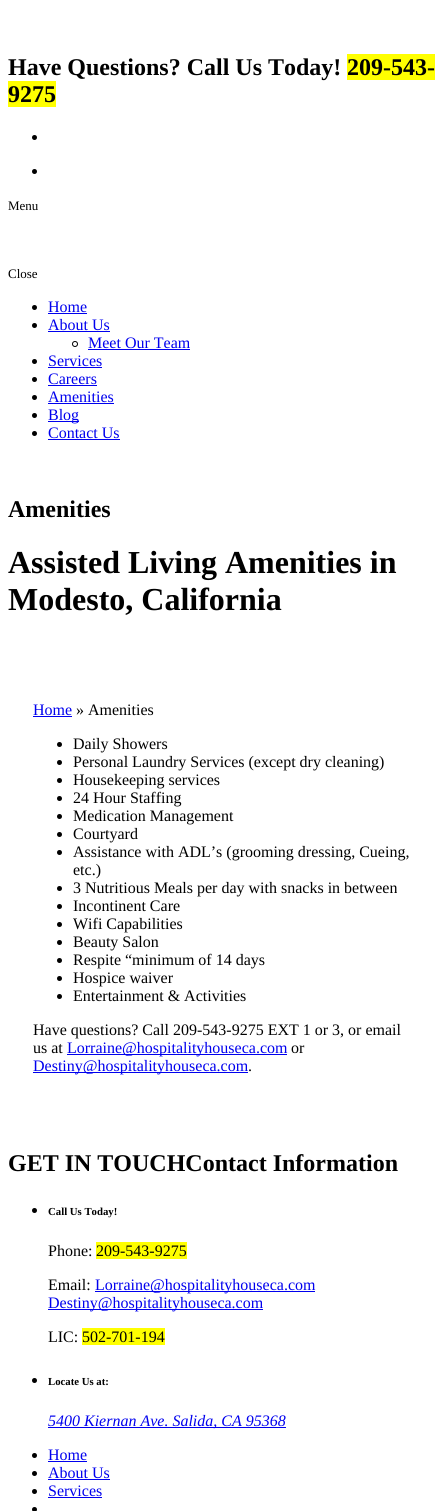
#include <cairo.h>
#include <math.h>
#include <stddef.h>

typedef struct { const char *family; double size; int italic, bold; unsigned color; } style_t;
static cairo_t *ctx;

static void ink(unsigned color) {
    cairo_set_source_rgb(ctx, (color >> 16) / 255.0, (color >> 8 & 255) / 255.0, (color & 255) / 255.0);
}

static void write(double x, double y, const char *s, const style_t *st) {
    cairo_select_font_face(ctx, st->family, st->italic ? CAIRO_FONT_SLANT_ITALIC : CAIRO_FONT_SLANT_NORMAL,
        st->bold ? CAIRO_FONT_WEIGHT_BOLD : CAIRO_FONT_WEIGHT_NORMAL);
    cairo_set_font_size(ctx, st->size);
    ink(st->color);
    cairo_move_to(ctx, x, y);
    cairo_show_text(ctx, s);
}

static void block(double x, double y, double w, double h, unsigned color) {
    ink(color);
    cairo_rectangle(ctx, x, y, w, h);
    cairo_fill(ctx);
}

static const style_t s1 = {"Liberation Serif", 24, 0, 1, 0x000000};
static const style_t s2 = {"Liberation Serif", 13, 0, 0, 0x000000};
static const style_t s3 = {"Liberation Serif", 16, 0, 0, 0x0000ee};
static const style_t s4 = {"Liberation Serif", 32, 0, 1, 0x000000};
static const style_t s5 = {"Liberation Serif", 16, 0, 0, 0x000000};
static const style_t s6 = {"Liberation Serif", 10.75, 0, 1, 0x000000};
static const style_t s7 = {"Liberation Serif", 16, 1, 0, 0x0000ee};

int main(void) {
    cairo_surface_t *surface = cairo_image_surface_create(CAIRO_FORMAT_RGB24, 448, 1511);
    ctx = cairo_create(surface);
    cairo_font_options_t *options = cairo_font_options_create();
    cairo_font_options_set_hint_metrics(options, CAIRO_HINT_METRICS_OFF);
    cairo_font_options_set_hint_style(options, CAIRO_HINT_STYLE_NONE);
    cairo_set_font_options(ctx, options);
    cairo_set_miter_limit(ctx, 4);
    ink(0xffffff);
    cairo_paint(ctx);
    write(8, 75, "Have Questions? Call Us Today!", &s1);
    block(347, 54, 88, 26, 0xffff00);
    write(347, 75, "209-543-", &s1);
    block(8, 81, 48, 26, 0xffff00);
    write(8, 102, "9275", &s1);
    cairo_new_path(ctx);
    cairo_arc(ctx, 34.5, 137.5, 2.5, 0, 2 * M_PI);
    cairo_fill(ctx);
    cairo_arc(ctx, 34.5, 171.5, 2.5, 0, 2 * M_PI);
    cairo_fill(ctx);
    write(8, 210, "Menu", &s2);
    write(8, 278, "Close", &s2);
    cairo_new_path(ctx);
    cairo_arc(ctx, 34.5, 307.5, 2.5, 0, 2 * M_PI);
    cairo_fill(ctx);
    write(48, 312, "Home", &s3);
    block(48, 313, 39, 1, 0x0000ee);
    ink(0x000000);
    cairo_new_path(ctx);
    cairo_arc(ctx, 34.5, 325.5, 2.5, 0, 2 * M_PI);
    cairo_fill(ctx);
    write(48, 330, "About Us", &s3);
    block(48, 331, 62, 1, 0x0000ee);
    cairo_new_path(ctx);
    cairo_arc(ctx, 75, 344, 2.5, 0, 2 * M_PI);
    ink(0x000000);
    cairo_set_line_width(ctx, 1);
    cairo_stroke(ctx);
    write(88, 348, "Meet Our Team", &s3);
    block(88, 349, 102, 1, 0x0000ee);
    ink(0x000000);
    cairo_new_path(ctx);
    cairo_arc(ctx, 34.5, 361.5, 2.5, 0, 2 * M_PI);
    cairo_fill(ctx);
    write(48, 366, "Services", &s3);
    block(48, 367, 54, 1, 0x0000ee);
    ink(0x000000);
    cairo_new_path(ctx);
    cairo_arc(ctx, 34.5, 379.5, 2.5, 0, 2 * M_PI);
    cairo_fill(ctx);
    write(48, 384, "Careers", &s3);
    block(48, 385, 49, 1, 0x0000ee);
    ink(0x000000);
    cairo_new_path(ctx);
    cairo_arc(ctx, 34.5, 397.5, 2.5, 0, 2 * M_PI);
    cairo_fill(ctx);
    write(48, 402, "Amenities", &s3);
    block(48, 403, 66, 1, 0x0000ee);
    ink(0x000000);
    cairo_new_path(ctx);
    cairo_arc(ctx, 34.5, 415.5, 2.5, 0, 2 * M_PI);
    cairo_fill(ctx);
    block(48, 421, 31, 1, 0x0000ee);
    write(48, 420, "Blog", &s3);
    ink(0x000000);
    cairo_new_path(ctx);
    cairo_arc(ctx, 34.5, 433.5, 2.5, 0, 2 * M_PI);
    cairo_fill(ctx);
    write(48, 438, "Contact Us", &s3);
    block(48, 439, 72, 1, 0x0000ee);
    write(8, 517, "Amenities", &s1);
    write(8, 573, "Assisted Living Amenities in", &s4);
    write(8, 610, "Modesto, California", &s4);
    write(33, 715, "Home", &s3);
    block(33, 716, 39, 1, 0x0000ee);
    write(76, 715, "» Amenities", &s5);
    cairo_new_path(ctx);
    cairo_arc(ctx, 59.5, 744.5, 2.5, 0, 2 * M_PI);
    cairo_fill(ctx);
    write(73, 749, "Daily Showers", &s5);
    cairo_new_path(ctx);
    cairo_arc(ctx, 59.5, 762.5, 2.5, 0, 2 * M_PI);
    cairo_fill(ctx);
    write(73, 767, "Personal Laundry Services (except dry cleaning)", &s5);
    cairo_new_path(ctx);
    cairo_arc(ctx, 59.5, 780.5, 2.5, 0, 2 * M_PI);
    cairo_fill(ctx);
    write(73, 785, "Housekeeping services", &s5);
    cairo_new_path(ctx);
    cairo_arc(ctx, 59.5, 798.5, 2.5, 0, 2 * M_PI);
    cairo_fill(ctx);
    write(73, 803, "24 Hour Staffing", &s5);
    cairo_new_path(ctx);
    cairo_arc(ctx, 59.5, 816.5, 2.5, 0, 2 * M_PI);
    cairo_fill(ctx);
    write(73, 821, "Medication Management", &s5);
    cairo_new_path(ctx);
    cairo_arc(ctx, 59.5, 834.5, 2.5, 0, 2 * M_PI);
    cairo_fill(ctx);
    write(73, 839, "Courtyard", &s5);
    cairo_new_path(ctx);
    cairo_arc(ctx, 59.5, 852.5, 2.5, 0, 2 * M_PI);
    cairo_fill(ctx);
    write(73, 857, "Assistance with ADL’s (grooming dressing, Cueing,", &s5);
    write(73, 875, "etc.)", &s5);
    cairo_new_path(ctx);
    cairo_arc(ctx, 59.5, 888.5, 2.5, 0, 2 * M_PI);
    cairo_fill(ctx);
    write(73, 893, "3 Nutritious Meals per day with snacks in between", &s5);
    cairo_new_path(ctx);
    cairo_arc(ctx, 59.5, 906.5, 2.5, 0, 2 * M_PI);
    cairo_fill(ctx);
    write(73, 911, "Incontinent Care", &s5);
    cairo_new_path(ctx);
    cairo_arc(ctx, 59.5, 924.5, 2.5, 0, 2 * M_PI);
    cairo_fill(ctx);
    write(73, 929, "Wifi Capabilities", &s5);
    cairo_new_path(ctx);
    cairo_arc(ctx, 59.5, 942.5, 2.5, 0, 2 * M_PI);
    cairo_fill(ctx);
    write(73, 947, "Beauty Salon", &s5);
    cairo_new_path(ctx);
    cairo_arc(ctx, 59.5, 960.5, 2.5, 0, 2 * M_PI);
    cairo_fill(ctx);
    write(73, 965, "Respite “minimum of 14 days", &s5);
    cairo_new_path(ctx);
    cairo_arc(ctx, 59.5, 978.5, 2.5, 0, 2 * M_PI);
    cairo_fill(ctx);
    write(73, 983, "Hospice waiver", &s5);
    cairo_new_path(ctx);
    cairo_arc(ctx, 59.5, 996.5, 2.5, 0, 2 * M_PI);
    cairo_fill(ctx);
    write(73, 1001, "Entertainment & Activities", &s5);
    write(33, 1035, "Have questions? Call 209-543-9275 EXT 1 or 3, or email", &s5);
    write(33, 1053, "us at", &s5);
    block(67, 1054, 220, 1, 0x0000ee);
    write(67, 1053, "Lorraine@hospitalityhouseca.com", &s3);
    write(291, 1053, "or", &s5);
    block(33, 1072, 215, 1, 0x0000ee);
    write(33, 1071, "Destiny@hospitalityhouseca.com", &s3);
    write(248, 1071, ".", &s5);
    write(8, 1171, "GET IN TOUCHContact Information", &s1);
    cairo_new_path(ctx);
    cairo_arc(ctx, 34.5, 1210.5, 2.5, 0, 2 * M_PI);
    cairo_fill(ctx);
    write(48, 1215, "Call Us Today!", &s6);
    write(48, 1256, "Phone:", &s5);
    block(96, 1242, 91, 17, 0xffff00);
    write(96, 1256, "209-543-9275", &s5);
    write(48, 1290, "Email:", &s5);
    block(95, 1291, 220, 1, 0x0000ee);
    write(95, 1290, "Lorraine@hospitalityhouseca.com", &s3);
    block(48, 1309, 215, 1, 0x0000ee);
    write(48, 1308, "Destiny@hospitalityhouseca.com", &s3);
    write(48, 1342, "LIC:", &s5);
    block(82, 1328, 83, 17, 0xffff00);
    write(82, 1342, "502-701-194", &s5);
    cairo_new_path(ctx);
    cairo_arc(ctx, 34.5, 1380.5, 2.5, 0, 2 * M_PI);
    cairo_fill(ctx);
    write(48, 1385, "Locate Us at:", &s6);
    block(48, 1427, 238, 1, 0x0000ee);
    write(48, 1426, "5400 Kiernan Ave. Salida, CA 95368", &s7);
    ink(0x000000);
    cairo_new_path(ctx);
    cairo_arc(ctx, 34.5, 1455.5, 2.5, 0, 2 * M_PI);
    cairo_fill(ctx);
    write(48, 1460, "Home", &s3);
    block(48, 1461, 39, 1, 0x0000ee);
    ink(0x000000);
    cairo_new_path(ctx);
    cairo_arc(ctx, 34.5, 1473.5, 2.5, 0, 2 * M_PI);
    cairo_fill(ctx);
    write(48, 1478, "About Us", &s3);
    block(48, 1479, 62, 1, 0x0000ee);
    ink(0x000000);
    cairo_new_path(ctx);
    cairo_arc(ctx, 34.5, 1491.5, 2.5, 0, 2 * M_PI);
    cairo_fill(ctx);
    write(48, 1496, "Services", &s3);
    block(48, 1497, 54, 1, 0x0000ee);
    ink(0x000000);
    cairo_new_path(ctx);
    cairo_arc(ctx, 34.5, 1509.5, 2.5, 0, 2 * M_PI);
    cairo_fill(ctx);
    cairo_surface_write_to_png(surface, "screenshot.png");
    cairo_font_options_destroy(options);
    cairo_destroy(ctx);
    cairo_surface_destroy(surface);
    return 0;
}
